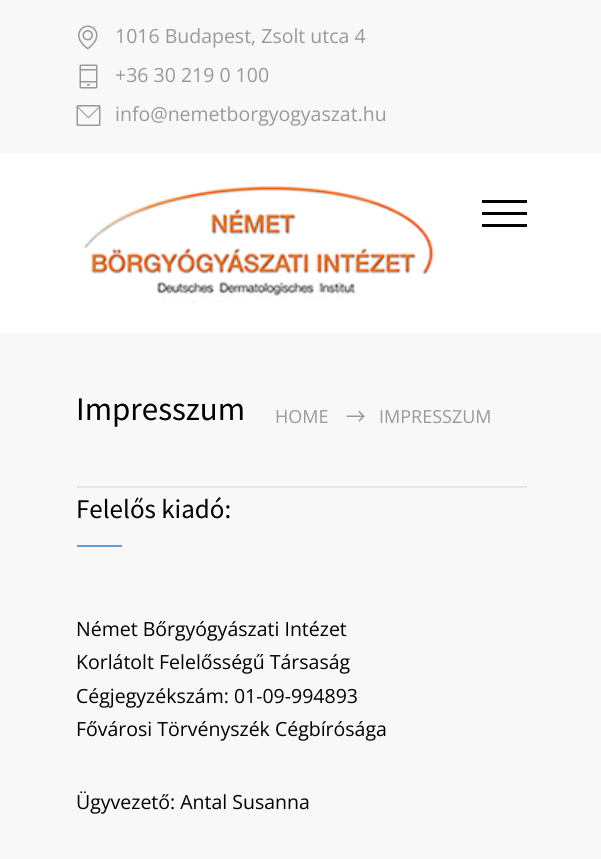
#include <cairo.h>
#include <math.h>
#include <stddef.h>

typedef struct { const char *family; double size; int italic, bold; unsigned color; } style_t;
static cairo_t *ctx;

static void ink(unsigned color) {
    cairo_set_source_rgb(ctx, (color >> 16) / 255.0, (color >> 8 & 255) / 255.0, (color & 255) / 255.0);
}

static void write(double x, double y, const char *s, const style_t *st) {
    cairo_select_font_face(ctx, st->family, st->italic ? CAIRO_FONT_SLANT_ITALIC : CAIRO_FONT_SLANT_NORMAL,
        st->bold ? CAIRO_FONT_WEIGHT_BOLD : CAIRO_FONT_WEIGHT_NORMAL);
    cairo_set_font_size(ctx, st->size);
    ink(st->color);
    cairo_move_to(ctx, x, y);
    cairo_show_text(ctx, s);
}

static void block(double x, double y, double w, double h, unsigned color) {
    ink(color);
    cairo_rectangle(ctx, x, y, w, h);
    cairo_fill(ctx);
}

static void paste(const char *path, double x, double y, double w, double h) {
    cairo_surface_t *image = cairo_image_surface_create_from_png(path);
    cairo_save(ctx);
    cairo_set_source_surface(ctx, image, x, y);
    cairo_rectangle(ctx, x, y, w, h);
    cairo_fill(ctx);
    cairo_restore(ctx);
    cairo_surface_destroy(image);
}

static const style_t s1 = {"Open Sans", 19.5, 0, 0, 0x999999};
static const style_t s2 = {"Source Sans Pro", 33, 0, 0, 0x000000};
static const style_t s3 = {"Open Sans", 18, 0, 0, 0x999999};
static const style_t s4 = {"Source Sans Pro", 27, 0, 0, 0x000000};
static const style_t s5 = {"Open Sans", 19.5, 0, 0, 0x000000};

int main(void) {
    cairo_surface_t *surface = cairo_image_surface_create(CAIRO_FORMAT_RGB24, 601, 859);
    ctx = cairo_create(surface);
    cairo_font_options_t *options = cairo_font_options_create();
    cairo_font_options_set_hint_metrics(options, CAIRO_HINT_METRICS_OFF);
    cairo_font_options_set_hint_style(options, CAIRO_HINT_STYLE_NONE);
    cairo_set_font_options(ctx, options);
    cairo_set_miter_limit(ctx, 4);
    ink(0xf8f8f8);
    cairo_paint(ctx);
    paste("pic1.png", 78, 25, 20, 25);
    write(115, 43, "1016 Budapest, Zsolt utca 4", &s1);
    paste("pic2.png", 79, 64, 19, 25);
    write(115, 82, "+36 30 219 0 100", &s1);
    paste("pic3.png", 76, 105, 25, 21);
    write(115, 121, "info@nemetborgyogyaszat.hu", &s1);
    block(0, 153, 601, 180, 0xffffff);
    paste("pic4.png", 84, 185, 350, 118);
    block(482, 200, 45, 3, 0x000000);
    block(482, 212, 45, 3, 0x000000);
    block(482, 224, 45, 3, 0x000000);
    block(77, 486, 450, 2, 0xe5e5e5);
    write(76, 420, "Impresszum", &s2);
    write(275, 423, "HOME", &s3);
    paste("pic5.png", 346, 411, 19, 11);
    write(379, 423, "IMPRESSZUM", &s3);
    write(76, 518, "Felelős kiadó:", &s4);
    block(77, 545, 45, 2, 0x5aa1e3);
    write(76, 636, "Német Bőrgyógyászati Intézet", &s5);
    write(76, 669, "Korlátolt Felelősségű Társaság", &s5);
    write(76, 703, "Cégjegyzékszám: 01-09-994893", &s5);
    write(76, 736, "Fővárosi Törvényszék Cégbírósága", &s5);
    write(76, 809, "Ügyvezető: Antal Susanna", &s5);
    cairo_surface_write_to_png(surface, "screenshot.png");
    cairo_font_options_destroy(options);
    cairo_destroy(ctx);
    cairo_surface_destroy(surface);
    return 0;
}
